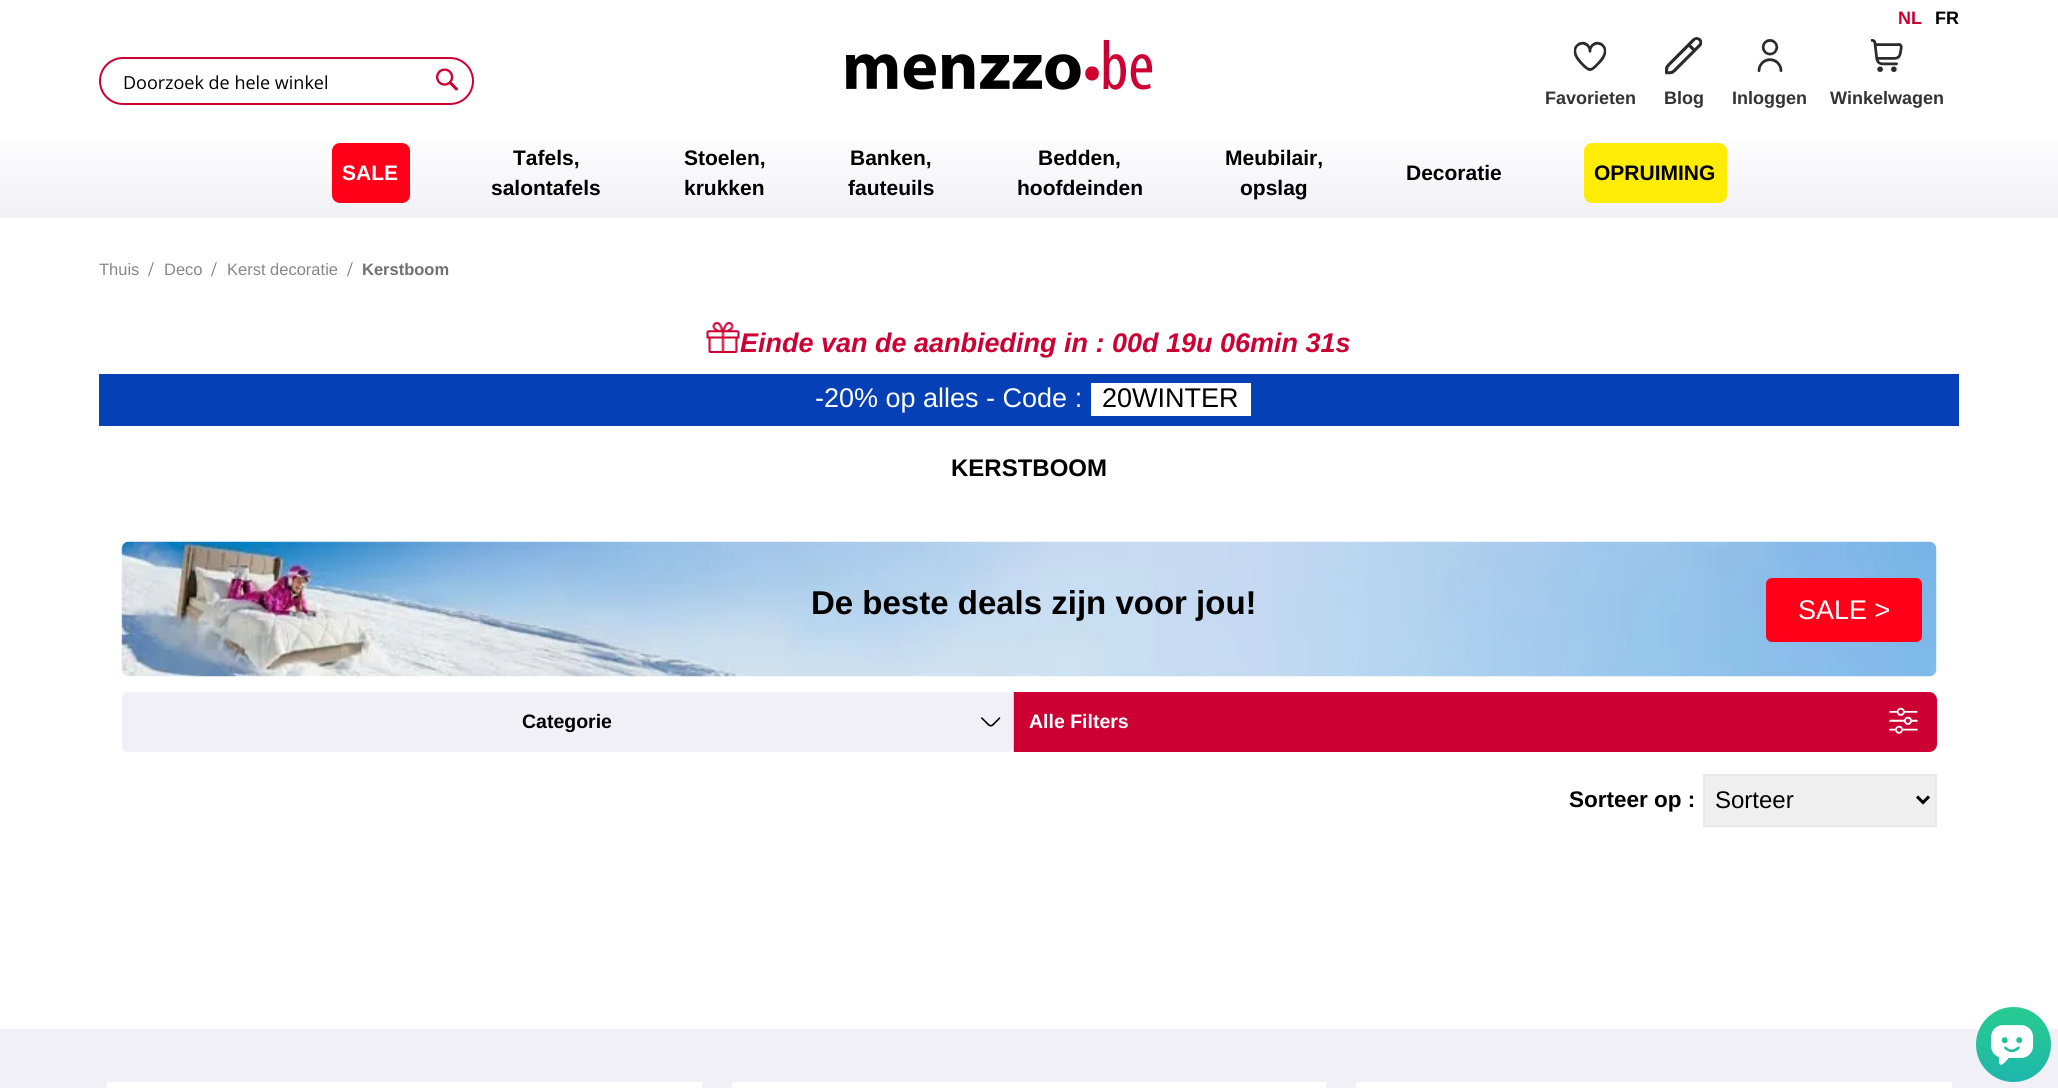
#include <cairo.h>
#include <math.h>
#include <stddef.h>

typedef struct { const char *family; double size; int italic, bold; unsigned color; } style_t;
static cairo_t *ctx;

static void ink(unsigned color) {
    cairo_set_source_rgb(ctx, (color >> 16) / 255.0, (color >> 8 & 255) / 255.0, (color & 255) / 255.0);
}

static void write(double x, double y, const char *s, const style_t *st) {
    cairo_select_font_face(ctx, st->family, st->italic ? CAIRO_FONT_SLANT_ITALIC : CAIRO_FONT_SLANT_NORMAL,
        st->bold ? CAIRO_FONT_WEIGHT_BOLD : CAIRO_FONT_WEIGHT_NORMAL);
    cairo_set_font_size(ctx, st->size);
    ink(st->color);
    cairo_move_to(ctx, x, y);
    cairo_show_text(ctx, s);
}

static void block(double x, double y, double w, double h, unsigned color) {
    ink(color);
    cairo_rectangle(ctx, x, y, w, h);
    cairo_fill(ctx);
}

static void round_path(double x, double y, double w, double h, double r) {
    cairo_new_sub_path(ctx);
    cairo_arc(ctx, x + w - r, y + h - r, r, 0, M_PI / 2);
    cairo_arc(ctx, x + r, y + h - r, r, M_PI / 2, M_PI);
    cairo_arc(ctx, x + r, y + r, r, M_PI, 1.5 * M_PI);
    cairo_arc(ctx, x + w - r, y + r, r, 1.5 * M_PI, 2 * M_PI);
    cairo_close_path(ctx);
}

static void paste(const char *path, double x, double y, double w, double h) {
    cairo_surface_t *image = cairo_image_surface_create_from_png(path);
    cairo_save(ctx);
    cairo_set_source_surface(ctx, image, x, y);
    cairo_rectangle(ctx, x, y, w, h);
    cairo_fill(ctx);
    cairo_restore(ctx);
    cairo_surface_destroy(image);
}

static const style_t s1 = {"Liberation Sans", 18, 0, 1, 0xcc0033};
static const style_t s2 = {"Liberation Sans", 18, 0, 1, 0x000000};
static const style_t s3 = {"Open Sans", 18, 0, 0, 0x000000};
static const style_t s4 = {"Liberation Sans", 18, 0, 1, 0x333333};
static const style_t s5 = {"Liberation Sans", 21, 0, 1, 0xffffff};
static const style_t s6 = {"Liberation Sans", 21, 0, 1, 0x000000};
static const style_t s7 = {"Liberation Sans", 16.5, 0, 0, 0x878787};
static const style_t s8 = {"Liberation Serif", 21, 0, 0, 0x707070};
static const style_t s9 = {"Liberation Sans", 16.5, 0, 1, 0x707070};
static const style_t s10 = {"Liberation Sans", 27, 1, 1, 0xcc0033};
static const style_t s11 = {"Liberation Sans", 27, 0, 0, 0xffffff};
static const style_t s12 = {"Liberation Sans", 27, 0, 0, 0x000000};
static const style_t s13 = {"Liberation Sans", 24, 0, 1, 0x000000};
static const style_t s14 = {"Liberation Sans", 33, 0, 1, 0x000000};
static const style_t s15 = {"Liberation Sans", 19.5, 0, 1, 0x000000};
static const style_t s16 = {"Liberation Sans", 19.5, 0, 1, 0xffffff};
static const style_t s17 = {"Liberation Sans", 22.5, 0, 1, 0x000000};
static const style_t s18 = {"Liberation Sans", 24, 0, 0, 0x000000};

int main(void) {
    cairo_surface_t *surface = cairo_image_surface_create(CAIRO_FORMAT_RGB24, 2058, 1088);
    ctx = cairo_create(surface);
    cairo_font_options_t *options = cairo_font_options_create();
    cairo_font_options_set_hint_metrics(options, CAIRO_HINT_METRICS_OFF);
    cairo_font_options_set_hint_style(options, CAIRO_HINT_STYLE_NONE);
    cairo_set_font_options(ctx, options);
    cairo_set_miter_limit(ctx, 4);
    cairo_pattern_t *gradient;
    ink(0xffffff);
    cairo_paint(ctx);
    write(1898, 24, "NL", &s1);
    write(1935, 24, "FR", &s2);
    round_path(100, 58, 373, 46, 23);
    ink(0xcc0033);
    cairo_stroke(ctx);
    write(123, 89, "Doorzoek de hele winkel", &s3);
    paste("pic1.png", 436, 68, 22, 23);
    paste("pic2.png", 845, 39, 308, 51);
    paste("pic3.png", 1573, 41, 34, 30);
    write(1545, 104, "Favorieten", &s4);
    paste("pic4.png", 1665, 37, 38, 38);
    write(1664, 104, "Blog", &s4);
    paste("pic5.png", 1757, 39, 26, 33);
    write(1732, 104, "Inloggen", &s4);
    paste("pic6.png", 1870, 39, 33, 33);
    write(1830, 104, "Winkelwagen", &s4);
    gradient = cairo_pattern_create_linear(1029, 127, 1029, 218);
    cairo_pattern_add_color_stop_rgba(gradient, 0, 1, 1, 1, 1);
    cairo_pattern_add_color_stop_rgba(gradient, 1, 0.945, 0.941, 0.961, 1);
    cairo_set_source(ctx, gradient);
    cairo_pattern_destroy(gradient);
    cairo_rectangle(ctx, 0, 142, 2058, 76);
    cairo_fill(ctx);
    ink(0xff0018);
    round_path(332, 143, 78, 60, 8);
    cairo_fill(ctx);
    write(342, 180, "SALE", &s5);
    write(513, 165, "Tafels,", &s6);
    write(491, 195, "salontafels", &s6);
    write(684, 165, "Stoelen,", &s6);
    write(684, 195, "krukken", &s6);
    write(850, 165, "Banken,", &s6);
    write(848, 195, "fauteuils", &s6);
    write(1038, 165, "Bedden,", &s6);
    write(1017, 195, "hoofdeinden", &s6);
    write(1225, 165, "Meubilair,", &s6);
    write(1240, 195, "opslag", &s6);
    write(1406, 180, "Decoratie", &s6);
    ink(0xffec05);
    round_path(1584, 143, 143, 60, 8);
    cairo_fill(ctx);
    write(1594, 180, "OPRUIMING", &s6);
    write(99, 275, "Thuis", &s7);
    write(148, 276, "/", &s8);
    write(164, 275, "Deco", &s7);
    write(211, 276, "/", &s8);
    write(227, 275, "Kerst decoratie", &s7);
    write(347, 276, "/", &s8);
    write(362, 275, "Kerstboom", &s9);
    paste("pic7.png", 706, 322, 34, 32);
    write(740, 352, "Einde van de aanbieding in :", &s10);
    write(1112, 352, "00d 19u 06min 31s", &s10);
    block(99, 374, 1860, 52, 0x0540b6);
    write(815, 407, "-20% op alles - Code :", &s11);
    block(1091, 383, 160, 33, 0xffffff);
    write(1102, 407, "20WINTER", &s12);
    write(951, 476, "KERSTBOOM", &s13);
    paste("pic8.png", 121, 541, 1816, 136);
    write(811, 614, "De beste deals zijn voor jou!", &s14);
    ink(0xff0018);
    round_path(1766, 578, 156, 64, 6);
    cairo_fill(ctx);
    write(1798, 619, "SALE >", &s11);
    block(1013, 692, 1, 60, 0xcfcbd5);
    ink(0xf1f0f6);
    round_path(122, 692, 891, 60, 5);
    cairo_fill(ctx);
    write(522, 728, "Categorie", &s15);
    paste("pic9.png", 981, 717, 20, 10);
    ink(0xcc0033);
    cairo_new_path(ctx);
    cairo_move_to(ctx, 1014, 692);
    cairo_line_to(ctx, 1929, 692);
    cairo_curve_to(ctx, 1933.5, 692, 1937, 695.5, 1937, 700);
    cairo_line_to(ctx, 1937, 744);
    cairo_curve_to(ctx, 1937, 748.5, 1933.5, 752, 1929, 752);
    cairo_line_to(ctx, 1014, 752);
    cairo_close_path(ctx);
    cairo_fill(ctx);
    write(1029, 728, "Alle Filters", &s16);
    paste("pic10.png", 1889, 707, 29, 27);
    write(1569, 807, "Sorteer op :", &s17);
    ink(0xefefef);
    cairo_rectangle(ctx, 1704, 775, 232, 51);
    cairo_fill_preserve(ctx);
    ink(0xe8e8e8);
    cairo_stroke(ctx);
    cairo_new_path(ctx);
    cairo_move_to(ctx, 1917, 796.5);
    cairo_line_to(ctx, 1923, 802.5);
    cairo_line_to(ctx, 1929, 796.5);
    ink(0x000000);
    cairo_set_line_width(ctx, 3);
    cairo_stroke(ctx);
    write(1715, 808, "Sorteer", &s18);
    block(0, 1029, 2058, 59, 0xf1f0f6);
    gradient = cairo_pattern_create_linear(2013, 1082, 2013, 1007);
    cairo_pattern_add_color_stop_rgba(gradient, 0, 0.118, 0.714, 0.675, 1);
    cairo_pattern_add_color_stop_rgba(gradient, 1, 0.153, 0.8, 0.557, 1);
    cairo_set_source(ctx, gradient);
    cairo_pattern_destroy(gradient);
    cairo_new_path(ctx);
    cairo_arc(ctx, 2013.5, 1044.5, 37.5, 0, 2 * M_PI);
    cairo_fill(ctx);
    paste("pic11.png", 1991, 1025, 43, 40);
    block(107, 1082, 595, 6, 0xffffff);
    block(732, 1082, 594, 6, 0xffffff);
    block(1356, 1082, 596, 6, 0xffffff);
    cairo_surface_write_to_png(surface, "screenshot.png");
    cairo_font_options_destroy(options);
    cairo_destroy(ctx);
    cairo_surface_destroy(surface);
    return 0;
}
